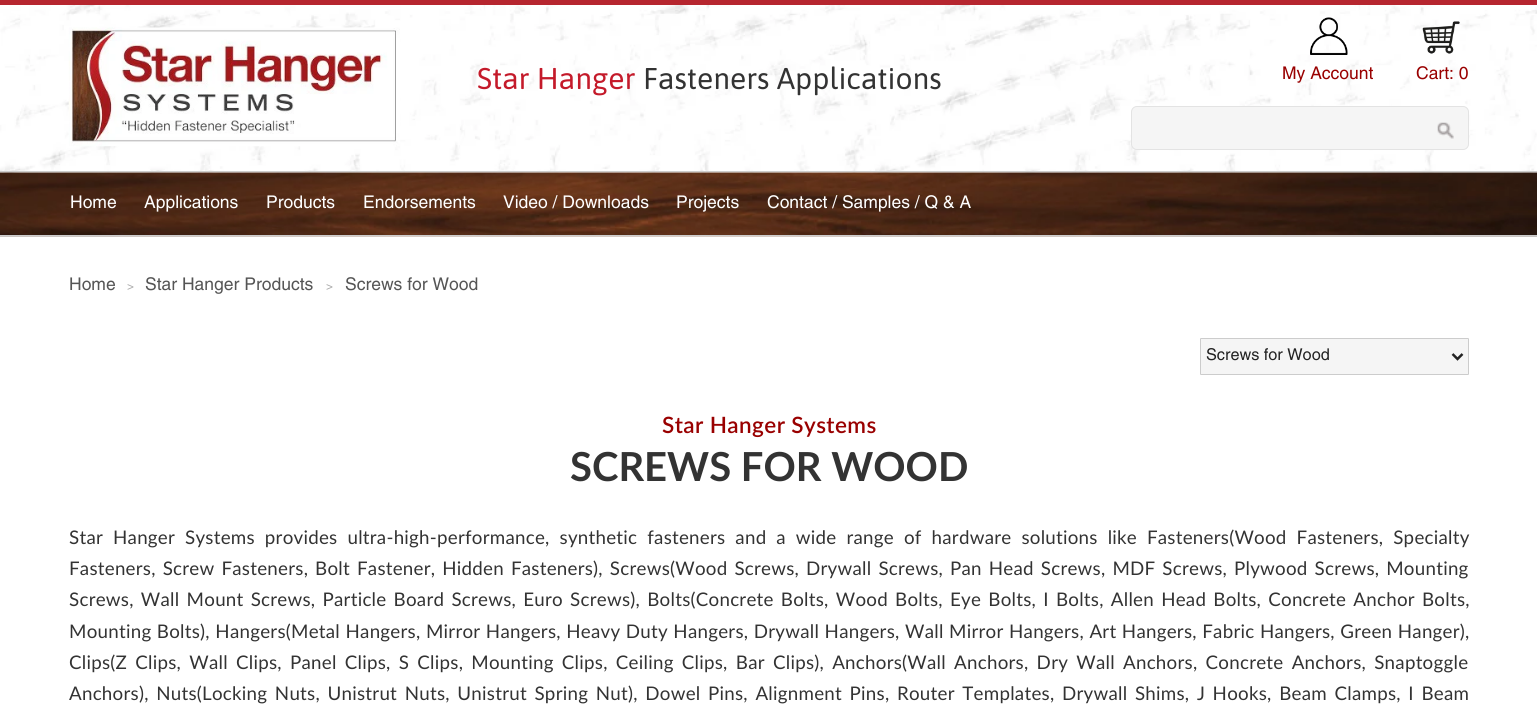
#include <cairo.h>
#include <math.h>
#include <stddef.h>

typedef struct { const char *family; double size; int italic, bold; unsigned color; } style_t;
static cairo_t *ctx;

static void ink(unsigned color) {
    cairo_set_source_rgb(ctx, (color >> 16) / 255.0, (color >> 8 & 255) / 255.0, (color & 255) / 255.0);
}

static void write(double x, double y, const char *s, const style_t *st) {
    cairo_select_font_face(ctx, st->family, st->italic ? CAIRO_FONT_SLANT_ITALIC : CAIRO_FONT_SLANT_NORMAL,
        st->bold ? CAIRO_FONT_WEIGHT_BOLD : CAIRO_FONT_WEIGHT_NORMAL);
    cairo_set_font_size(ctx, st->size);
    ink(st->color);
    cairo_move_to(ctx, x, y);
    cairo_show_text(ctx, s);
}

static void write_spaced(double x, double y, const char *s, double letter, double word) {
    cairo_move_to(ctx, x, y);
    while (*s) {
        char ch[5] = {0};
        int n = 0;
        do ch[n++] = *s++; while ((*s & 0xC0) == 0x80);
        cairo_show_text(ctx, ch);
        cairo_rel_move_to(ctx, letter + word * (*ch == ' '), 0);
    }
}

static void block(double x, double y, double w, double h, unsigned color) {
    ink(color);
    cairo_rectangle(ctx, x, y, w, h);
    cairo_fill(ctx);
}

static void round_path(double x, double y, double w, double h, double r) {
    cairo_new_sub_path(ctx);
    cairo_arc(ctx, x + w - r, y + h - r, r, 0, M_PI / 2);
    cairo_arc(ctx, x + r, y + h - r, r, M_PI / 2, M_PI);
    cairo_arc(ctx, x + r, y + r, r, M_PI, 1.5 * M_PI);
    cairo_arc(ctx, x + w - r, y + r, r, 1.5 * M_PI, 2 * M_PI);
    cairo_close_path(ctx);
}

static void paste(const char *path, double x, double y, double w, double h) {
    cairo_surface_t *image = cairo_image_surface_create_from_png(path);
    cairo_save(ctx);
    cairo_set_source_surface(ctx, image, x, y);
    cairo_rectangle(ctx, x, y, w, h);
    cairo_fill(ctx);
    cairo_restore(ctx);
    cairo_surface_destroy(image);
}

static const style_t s1 = {"Asap", 30, 0, 0, 0xc41a2a};
static const style_t s2 = {"Asap", 30, 0, 0, 0x333333};
static const style_t s3 = {"Helvetica", 17.5, 0, 0, 0x990000};
static const style_t s4 = {"Helvetica", 17.5, 0, 0, 0xffffff};
static const style_t s5 = {"Helvetica", 17.5, 0, 0, 0x555555};
static const style_t s6 = {"Helvetica", 12, 0, 0, 0xaaaaaa};
static const style_t s7 = {"Helvetica", 16.25, 0, 0, 0x222222};
static const style_t s8 = {"Lato", 40, 0, 1, 0x333333};

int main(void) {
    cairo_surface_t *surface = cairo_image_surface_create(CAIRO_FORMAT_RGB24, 1537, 719);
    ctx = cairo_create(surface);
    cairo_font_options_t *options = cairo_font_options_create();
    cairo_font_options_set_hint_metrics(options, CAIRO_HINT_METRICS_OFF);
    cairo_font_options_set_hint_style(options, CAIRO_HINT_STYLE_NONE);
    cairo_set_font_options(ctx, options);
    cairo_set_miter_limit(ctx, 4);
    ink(0xffffff);
    cairo_paint(ctx);
    paste("pic1.png", 0, 5, 1537, 168);
    block(0, 0, 1537, 5, 0xb6262f);
    paste("pic2.png", 68, 27, 332, 120);
    write(477, 89, "Star Hanger", &s1);
    write(643, 89, "Fasteners Applications", &s2);
    paste("pic3.png", 1310, 17, 38, 38);
    write(1282, 79, "My Account", &s3);
    paste("pic4.png", 1422, 21, 38, 33);
    write(1416, 79, "Cart: 0", &s3);
    ink(0xf5f5f5);
    round_path(1131.5, 106.5, 337, 43, 5.5);
    cairo_fill_preserve(ctx);
    ink(0xe3e3e3);
    cairo_set_line_width(ctx, 1);
    cairo_stroke(ctx);
    paste("pic5.png", 1437, 122, 17, 17);
    paste("pic6.png", 0, 172, 1537, 65);
    block(0, 171, 1537, 1, 0xcdcdcd);
    block(0, 235, 1537, 1, 0xcdcdcd);
    write(70, 208, "Home", &s4);
    write(144, 208, "Applications", &s4);
    write(266, 208, "Products", &s4);
    write(363, 208, "Endorsements", &s4);
    write(503, 208, "Video / Downloads", &s4);
    write(676, 208, "Projects", &s4);
    write(767, 208, "Contact / Samples / Q & A", &s4);
    write(69, 290, "Home", &s5);
    write(127, 290, ">", &s6);
    write(145, 290, "Star Hanger Products", &s5);
    write(326, 290, ">", &s6);
    write(345, 290, "Screws for Wood", &s5);
    ink(0xf5f5f5);
    round_path(1200.5, 338.5, 268, 36, 0.5);
    cairo_fill_preserve(ctx);
    ink(0xcccccc);
    cairo_stroke(ctx);
    cairo_new_path(ctx);
    cairo_move_to(ctx, 1452.5, 354);
    cairo_line_to(ctx, 1457.5, 359);
    cairo_line_to(ctx, 1462.5, 354);
    ink(0x222222);
    cairo_set_line_width(ctx, 2.5);
    cairo_stroke(ctx);
    write(1206, 360, "Screws for Wood", &s7);
    cairo_select_font_face(ctx, "Lato SemiBold", CAIRO_FONT_SLANT_NORMAL, CAIRO_FONT_WEIGHT_NORMAL);
    cairo_set_font_size(ctx, 22.5);
    ink(0x990000);
    write_spaced(662, 433, "Star Hanger Systems", 0.4, 0);
    write(570, 481, "SCREWS FOR WOOD", &s8);
    cairo_select_font_face(ctx, "Lato", CAIRO_FONT_SLANT_NORMAL, CAIRO_FONT_WEIGHT_NORMAL);
    cairo_set_font_size(ctx, 18.75);
    write_spaced(69, 544, "Star Hanger Systems provides ultra-high-performance, synthetic fasteners and a wide range of hardware solutions like Fasteners(Wood Fasteners, Specialty", 0.25, 4.9);
    write_spaced(69, 575, "Fasteners, Screw Fasteners, Bolt Fastener, Hidden Fasteners), Screws(Wood Screws, Drywall Screws, Pan Head Screws, MDF Screws, Plywood Screws, Mounting", 0.25, 1.9);
    write_spaced(69, 606, "Screws, Wall Mount Screws, Particle Board Screws, Euro Screws), Bolts(Concrete Bolts, Wood Bolts, Eye Bolts, I Bolts, Allen Head Bolts, Concrete Anchor Bolts,", 0.25, 2.1);
    write_spaced(69, 638, "Mounting Bolts), Hangers(Metal Hangers, Mirror Hangers, Heavy Duty Hangers, Drywall Hangers, Wall Mirror Hangers, Art Hangers, Fabric Hangers, Green Hanger),", 0.25, 0.4);
    write_spaced(69, 669, "Clips(Z Clips, Wall Clips, Panel Clips, S Clips, Mounting Clips, Ceiling Clips, Bar Clips), Anchors(Wall Anchors, Dry Wall Anchors, Concrete Anchors, Snaptoggle", 0.25, 3.1);
    write_spaced(69, 700, "Anchors), Nuts(Locking Nuts, Unistrut Nuts, Unistrut Spring Nut), Dowel Pins, Alignment Pins, Router Templates, Drywall Shims, J Hooks, Beam Clamps, I Beam", 0.25, 2.5);
    cairo_surface_write_to_png(surface, "screenshot.png");
    cairo_font_options_destroy(options);
    cairo_destroy(ctx);
    cairo_surface_destroy(surface);
    return 0;
}
